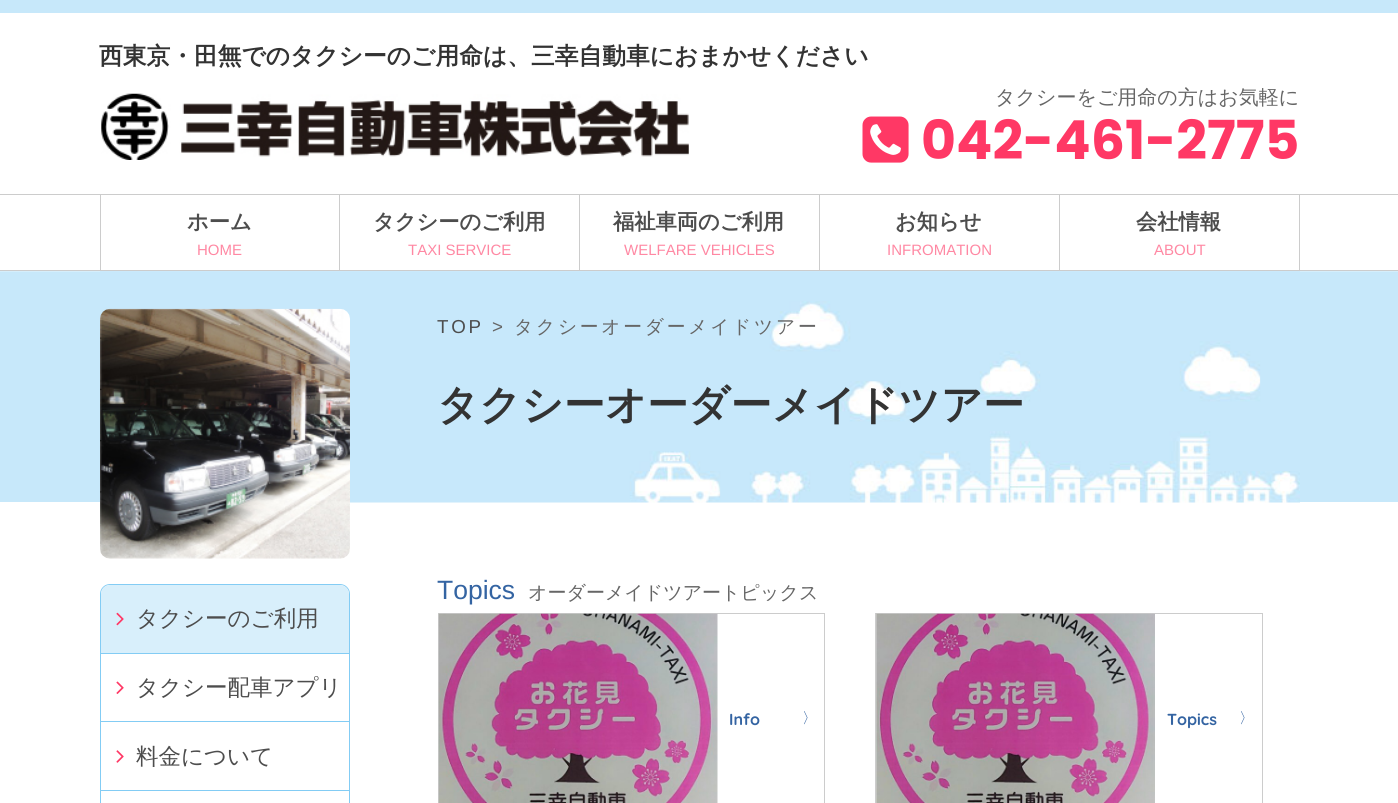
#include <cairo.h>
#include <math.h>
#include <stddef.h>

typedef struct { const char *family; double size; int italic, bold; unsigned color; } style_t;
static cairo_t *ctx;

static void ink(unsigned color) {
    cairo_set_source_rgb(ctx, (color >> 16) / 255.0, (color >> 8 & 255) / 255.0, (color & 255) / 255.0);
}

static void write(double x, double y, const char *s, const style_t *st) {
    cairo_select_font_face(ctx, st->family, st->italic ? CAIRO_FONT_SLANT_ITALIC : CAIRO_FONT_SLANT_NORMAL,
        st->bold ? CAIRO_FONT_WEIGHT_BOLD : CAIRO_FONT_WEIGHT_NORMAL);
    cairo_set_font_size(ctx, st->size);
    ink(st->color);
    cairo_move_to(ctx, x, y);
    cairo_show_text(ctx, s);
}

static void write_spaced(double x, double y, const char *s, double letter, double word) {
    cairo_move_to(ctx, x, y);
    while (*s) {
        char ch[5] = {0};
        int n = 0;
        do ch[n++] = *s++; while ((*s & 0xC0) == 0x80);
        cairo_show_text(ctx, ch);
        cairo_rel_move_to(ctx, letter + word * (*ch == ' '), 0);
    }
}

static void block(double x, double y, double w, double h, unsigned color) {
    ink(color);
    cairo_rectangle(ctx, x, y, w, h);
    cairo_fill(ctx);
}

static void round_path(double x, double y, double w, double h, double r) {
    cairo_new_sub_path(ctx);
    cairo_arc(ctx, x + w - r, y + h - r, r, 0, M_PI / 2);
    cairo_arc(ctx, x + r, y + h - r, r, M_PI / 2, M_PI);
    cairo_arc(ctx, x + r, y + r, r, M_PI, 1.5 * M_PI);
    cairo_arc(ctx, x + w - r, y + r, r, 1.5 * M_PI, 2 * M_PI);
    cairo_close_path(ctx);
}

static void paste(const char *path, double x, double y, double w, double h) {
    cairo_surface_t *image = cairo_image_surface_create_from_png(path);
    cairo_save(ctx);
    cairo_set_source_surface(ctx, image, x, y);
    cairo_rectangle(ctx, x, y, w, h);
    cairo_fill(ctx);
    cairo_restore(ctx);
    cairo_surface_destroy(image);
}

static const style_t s1 = {"WenQuanYi Zen Hei", 23.75, 0, 1, 0x333333};
static const style_t s2 = {"WenQuanYi Zen Hei Medium", 20, 0, 0, 0x666666};
static const style_t s3 = {"Poppins", 53.75, 0, 1, 0xff3865};
static const style_t s4 = {"WenQuanYi Zen Hei", 21.25, 0, 1, 0x4d4d4d};
static const style_t s5 = {"Liberation Sans", 15, 0, 0, 0xff88a3};
static const style_t s6 = {"WenQuanYi Zen Hei Medium", 22.5, 0, 0, 0x4d4d4d};
static const style_t s7 = {"WenQuanYi Zen Hei", 41.25, 0, 1, 0x333333};
static const style_t s8 = {"Liberation Sans", 26.5, 0, 0, 0x3464a2};
static const style_t s9 = {"WenQuanYi Zen Hei Medium", 19, 0, 0, 0x666666};
static const style_t s10 = {"Quicksand", 16, 0, 1, 0x3464a2};
static const style_t s11 = {"WenQuanYi Zen Hei Medium", 15, 0, 0, 0x3464a2};

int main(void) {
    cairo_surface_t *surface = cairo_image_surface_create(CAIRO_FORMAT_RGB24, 1398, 803);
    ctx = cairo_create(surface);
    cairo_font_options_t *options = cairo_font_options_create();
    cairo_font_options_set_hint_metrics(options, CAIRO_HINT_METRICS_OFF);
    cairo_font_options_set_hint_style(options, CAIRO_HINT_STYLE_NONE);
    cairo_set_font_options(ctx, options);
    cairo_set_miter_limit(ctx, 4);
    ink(0xffffff);
    cairo_paint(ctx);
    block(0, 0, 1398, 13, 0xc7e8fa);
    write(99, 64, "西東京・田無でのタクシーのご用命は、三幸自動車におまかせください", &s1);
    paste("pic1.png", 101, 93, 588, 67);
    write(995, 104, "タクシーをご用命の方はお気軽に", &s2);
    paste("pic2.png", 862, 116, 47, 47);
    write(921, 159, "042-461-2775", &s3);
    block(0, 194, 1398, 1, 0xcccccc);
    block(0, 270, 1398, 1, 0xcccccc);
    block(339, 195, 1, 75, 0xcccccc);
    block(100, 195, 1, 75, 0xcccccc);
    write(187, 229, "ホーム", &s4);
    write(197, 255, "HOME", &s5);
    block(579, 195, 1, 75, 0xcccccc);
    write(373, 229, "タクシーのご利用", &s4);
    write(408, 255, "TAXI SERVICE", &s5);
    block(819, 195, 1, 75, 0xcccccc);
    write(613, 229, "福祉車両のご利用", &s4);
    write(624, 255, "WELFARE VEHICLES", &s5);
    block(1059, 195, 1, 75, 0xcccccc);
    write(895, 229, "お知らせ", &s4);
    write(887, 255, "INFROMATION", &s5);
    block(1299, 195, 1, 75, 0xcccccc);
    write(1136, 229, "会社情報", &s4);
    write(1154, 255, "ABOUT", &s5);
    paste("pic3.png", 0, 271, 1398, 232);
    paste("pic4.png", 100, 308, 250, 251);
    round_path(100.5, 584.5, 249, 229, 9.5);
    ink(0x83ccf4);
    cairo_set_line_width(ctx, 1);
    cairo_stroke(ctx);
    ink(0xd8effb);
    cairo_new_path(ctx);
    cairo_move_to(ctx, 110, 585);
    cairo_line_to(ctx, 340, 585);
    cairo_curve_to(ctx, 345, 585, 349, 589, 349, 594);
    cairo_line_to(ctx, 349, 654);
    cairo_line_to(ctx, 101, 654);
    cairo_line_to(ctx, 101, 594);
    cairo_curve_to(ctx, 101, 589, 105, 585, 110, 585);
    cairo_close_path(ctx);
    cairo_fill(ctx);
    block(101, 653, 248, 1, 0x83ccf4);
    paste("pic5.png", 116, 612, 8, 14);
    write(136, 626, "タクシーのご利用", &s6);
    block(101, 721, 248, 1, 0x83ccf4);
    paste("pic6.png", 116, 681, 8, 13);
    write(136, 695, "タクシー配車アプリ", &s6);
    block(101, 790, 248, 1, 0x83ccf4);
    paste("pic7.png", 116, 750, 8, 13);
    write(136, 764, "料金について", &s6);
    cairo_select_font_face(ctx, "Liberation Sans", CAIRO_FONT_SLANT_NORMAL, CAIRO_FONT_WEIGHT_NORMAL);
    cairo_set_font_size(ctx, 18.75);
    write_spaced(437, 333, "TOP", 2.75, 0);
    ink(0x666666);
    write_spaced(492, 333, ">", 2.75, 0);
    cairo_select_font_face(ctx, "WenQuanYi Zen Hei Medium", CAIRO_FONT_SLANT_NORMAL, CAIRO_FONT_WEIGHT_NORMAL);
    write_spaced(514, 333, "タクシーオーダーメイドツアー", 2.75, 0);
    write(437, 419, "タクシーオーダーメイドツアー", &s7);
    write(437, 599, "Topics", &s8);
    write(528, 599, "オーダーメイドツアートピックス", &s9);
    cairo_rectangle(ctx, 438.5, 613.5, 386, 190);
    ink(0xcccccc);
    cairo_stroke(ctx);
    paste("pic8.png", 438, 613, 280, 190);
    write(729, 725, "Info", &s10);
    write(802, 723, "〉", &s11);
    cairo_rectangle(ctx, 875.5, 613.5, 387, 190);
    ink(0xcccccc);
    cairo_stroke(ctx);
    paste("pic9.png", 876, 613, 279, 190);
    write(1167, 725, "Topics", &s10);
    write(1239, 723, "〉", &s11);
    cairo_surface_write_to_png(surface, "screenshot.png");
    cairo_font_options_destroy(options);
    cairo_destroy(ctx);
    cairo_surface_destroy(surface);
    return 0;
}
